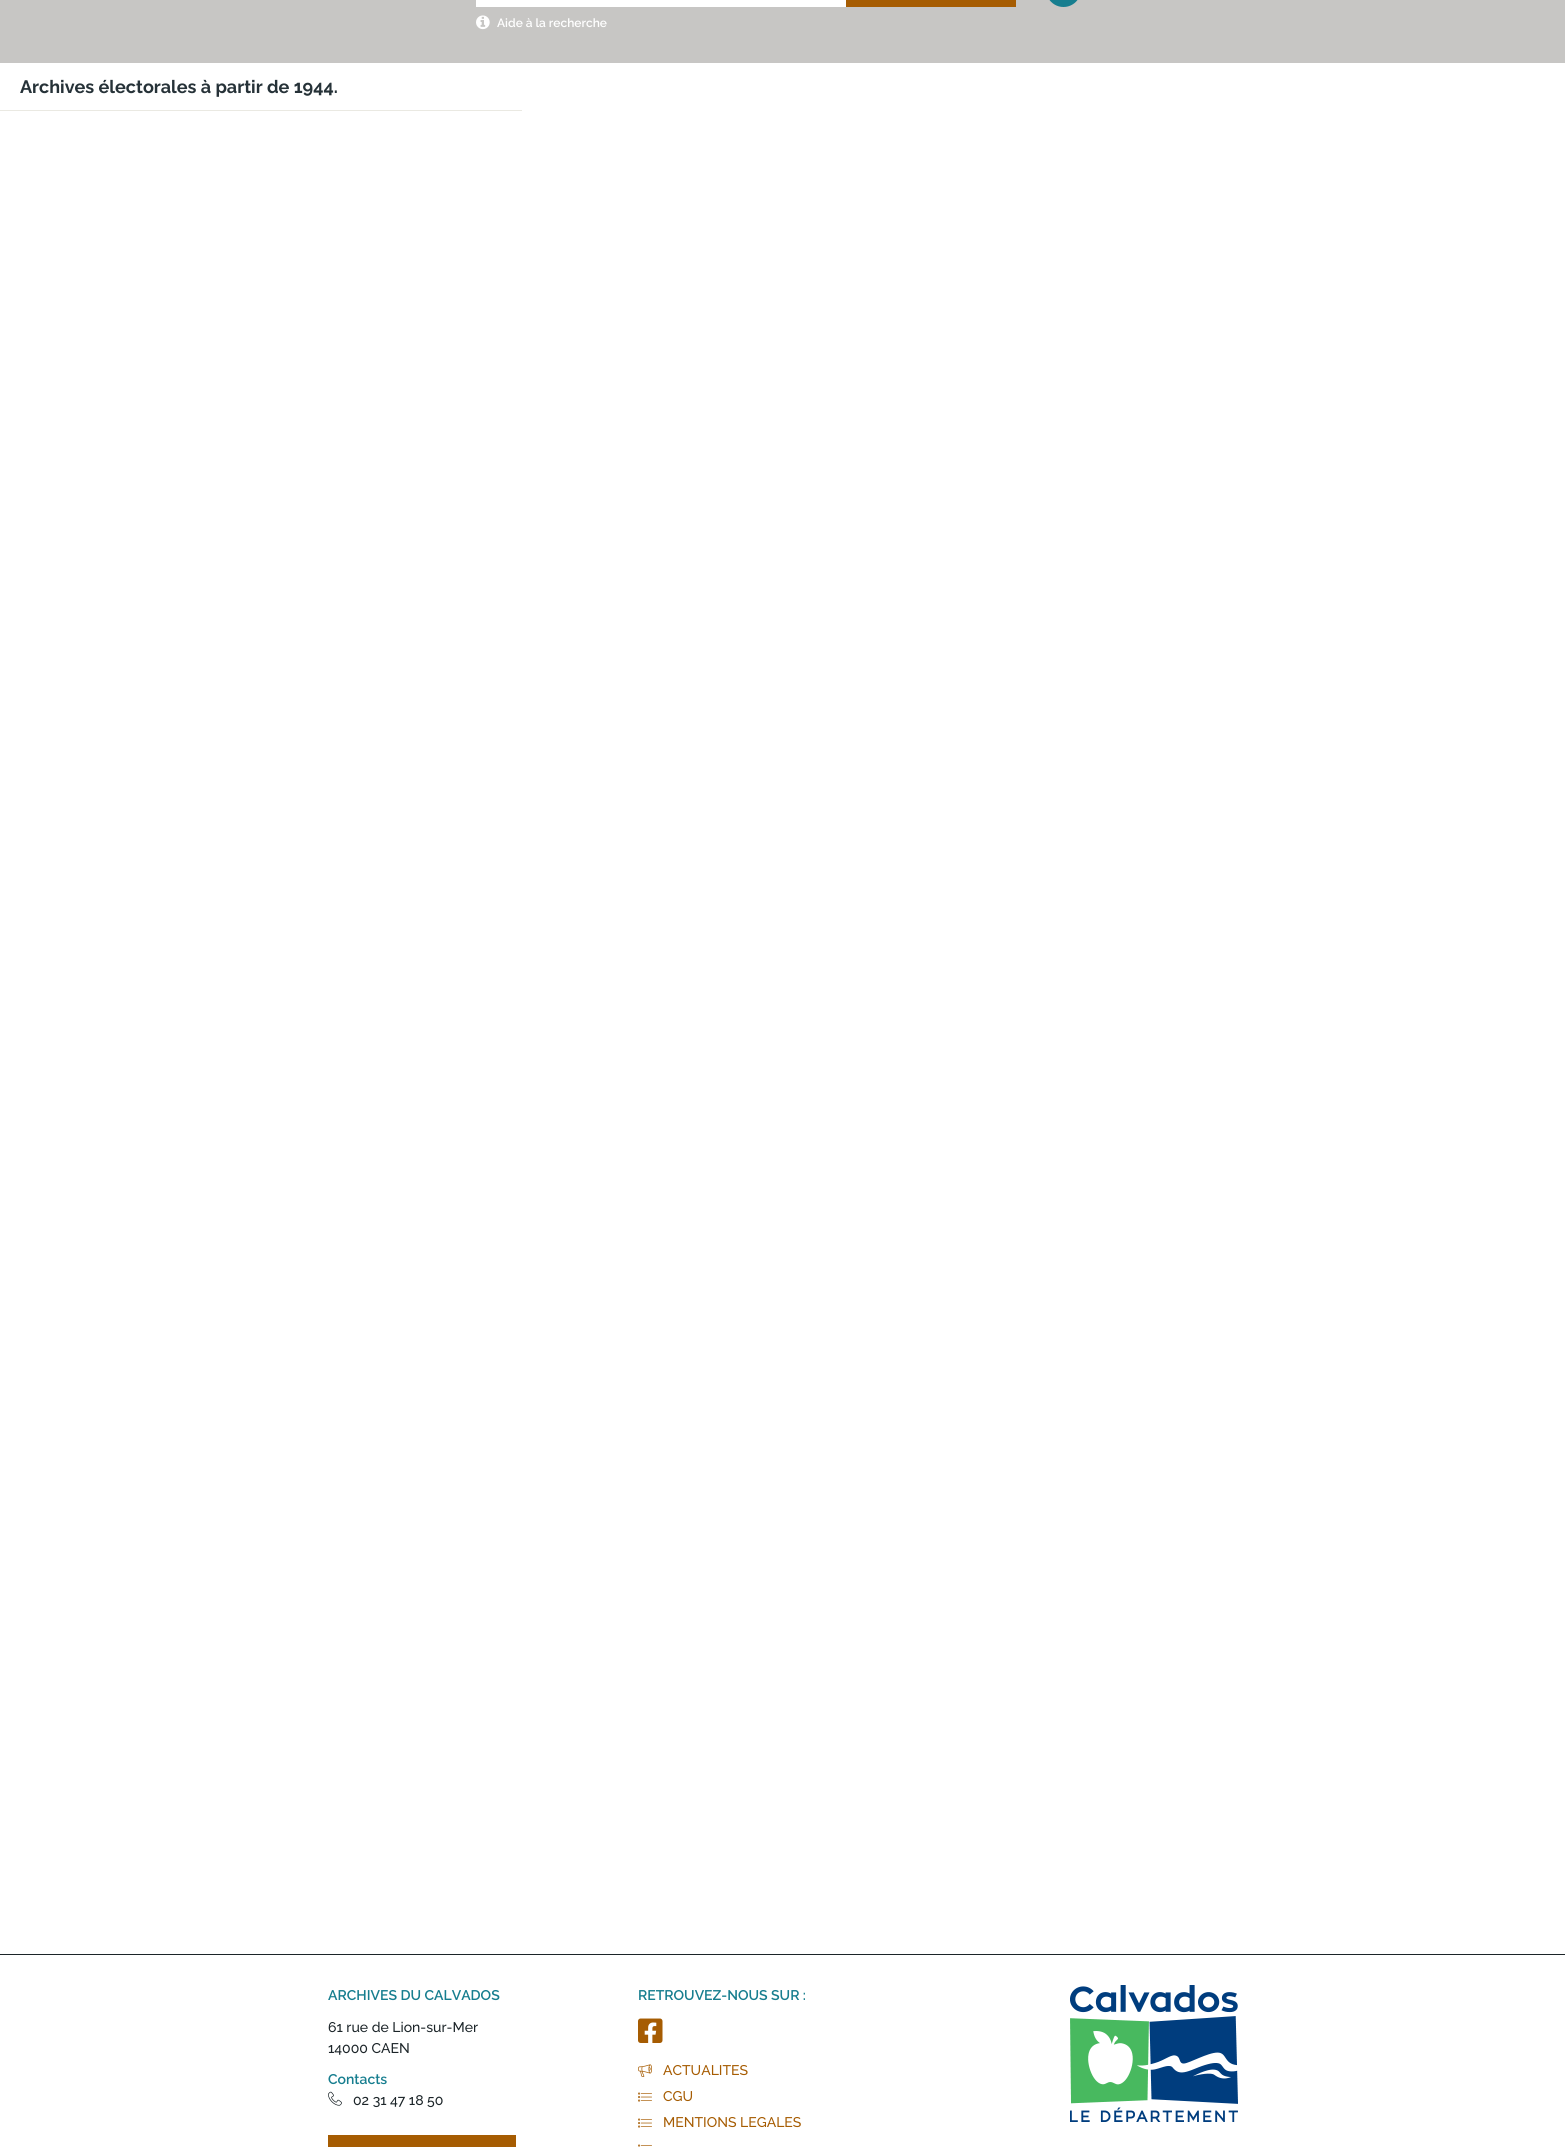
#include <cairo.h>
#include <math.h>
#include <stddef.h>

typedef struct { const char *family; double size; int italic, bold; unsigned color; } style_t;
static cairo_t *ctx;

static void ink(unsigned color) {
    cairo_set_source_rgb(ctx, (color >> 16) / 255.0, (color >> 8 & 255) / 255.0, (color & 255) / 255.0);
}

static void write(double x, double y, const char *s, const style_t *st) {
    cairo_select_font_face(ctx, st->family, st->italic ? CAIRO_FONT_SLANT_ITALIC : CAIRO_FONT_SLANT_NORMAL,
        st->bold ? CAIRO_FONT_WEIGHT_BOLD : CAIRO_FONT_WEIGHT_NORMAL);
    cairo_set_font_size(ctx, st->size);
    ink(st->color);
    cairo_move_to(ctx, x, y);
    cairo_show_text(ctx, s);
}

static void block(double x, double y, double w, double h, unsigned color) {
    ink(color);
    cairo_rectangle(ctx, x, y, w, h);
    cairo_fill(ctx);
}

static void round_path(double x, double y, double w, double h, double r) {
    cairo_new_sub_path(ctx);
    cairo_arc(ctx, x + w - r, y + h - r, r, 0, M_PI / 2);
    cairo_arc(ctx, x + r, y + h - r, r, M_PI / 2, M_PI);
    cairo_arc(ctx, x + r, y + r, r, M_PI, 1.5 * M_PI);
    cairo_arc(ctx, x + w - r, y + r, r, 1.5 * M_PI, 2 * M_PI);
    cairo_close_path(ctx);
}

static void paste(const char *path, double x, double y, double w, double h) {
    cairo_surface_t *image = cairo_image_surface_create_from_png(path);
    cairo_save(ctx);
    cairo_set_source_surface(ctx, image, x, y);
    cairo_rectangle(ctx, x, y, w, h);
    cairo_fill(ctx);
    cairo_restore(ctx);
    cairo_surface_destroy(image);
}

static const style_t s1 = {"Raleway SemiBold", 12, 0, 0, 0xffffff};
static const style_t s2 = {"Raleway", 18, 0, 1, 0x263238};
static const style_t s3 = {"Raleway SemiBold", 14, 0, 0, 0x177e8f};
static const style_t s4 = {"Raleway Medium", 14, 0, 0, 0x1c2529};
static const style_t s5 = {"Raleway Medium", 14, 0, 0, 0xa65c02};

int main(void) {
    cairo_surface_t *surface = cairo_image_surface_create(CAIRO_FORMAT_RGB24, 1565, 2147);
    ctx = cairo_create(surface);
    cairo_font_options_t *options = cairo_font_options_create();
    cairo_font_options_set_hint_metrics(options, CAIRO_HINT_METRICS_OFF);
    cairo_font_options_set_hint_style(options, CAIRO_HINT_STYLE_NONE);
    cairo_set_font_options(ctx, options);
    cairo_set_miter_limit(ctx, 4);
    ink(0xffffff);
    cairo_paint(ctx);
    block(0, 0, 1565, 63, 0xc7c6c4);
    block(476, 0, 370, 7, 0xffffff);
    block(846, 0, 170, 7, 0xa65c02);
    ink(0x177e8f);
    round_path(1046, -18, 35, 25, 17.5);
    cairo_fill(ctx);
    paste("pic1.png", 476, 15, 14, 15);
    write(497, 27, "Aide à la recherche", &s1);
    block(0, 110, 522, 1, 0xeae9e2);
    write(20, 93, "Archives électorales à partir de 1944.", &s2);
    block(0, 1954, 1565, 1, 0x1c2529);
    write(328, 2000, "ARCHIVES DU CALVADOS", &s3);
    write(328, 2032, "61 rue de Lion-sur-Mer", &s4);
    write(328, 2053, "14000 CAEN", &s4);
    write(328, 2084, "Contacts", &s3);
    paste("pic2.png", 328, 2091, 14, 15);
    write(353, 2105, "02 31 47 18 50", &s4);
    block(328, 2135, 188, 12, 0xa65c02);
    write(638, 2000, "RETROUVEZ-NOUS SUR :", &s3);
    paste("pic3.png", 638, 2018, 25, 25);
    paste("pic4.png", 638, 2064, 14, 13);
    write(663, 2075, "ACTUALITES", &s5);
    paste("pic5.png", 638, 2092, 14, 10);
    write(663, 2101, "CGU", &s5);
    paste("pic5.png", 638, 2118, 14, 10);
    write(663, 2127, "MENTIONS LEGALES", &s5);
    paste("pic6.png", 638, 2144, 14, 3);
    paste("pic7.png", 1070, 1985, 168, 137);
    cairo_surface_write_to_png(surface, "screenshot.png");
    cairo_font_options_destroy(options);
    cairo_destroy(ctx);
    cairo_surface_destroy(surface);
    return 0;
}
